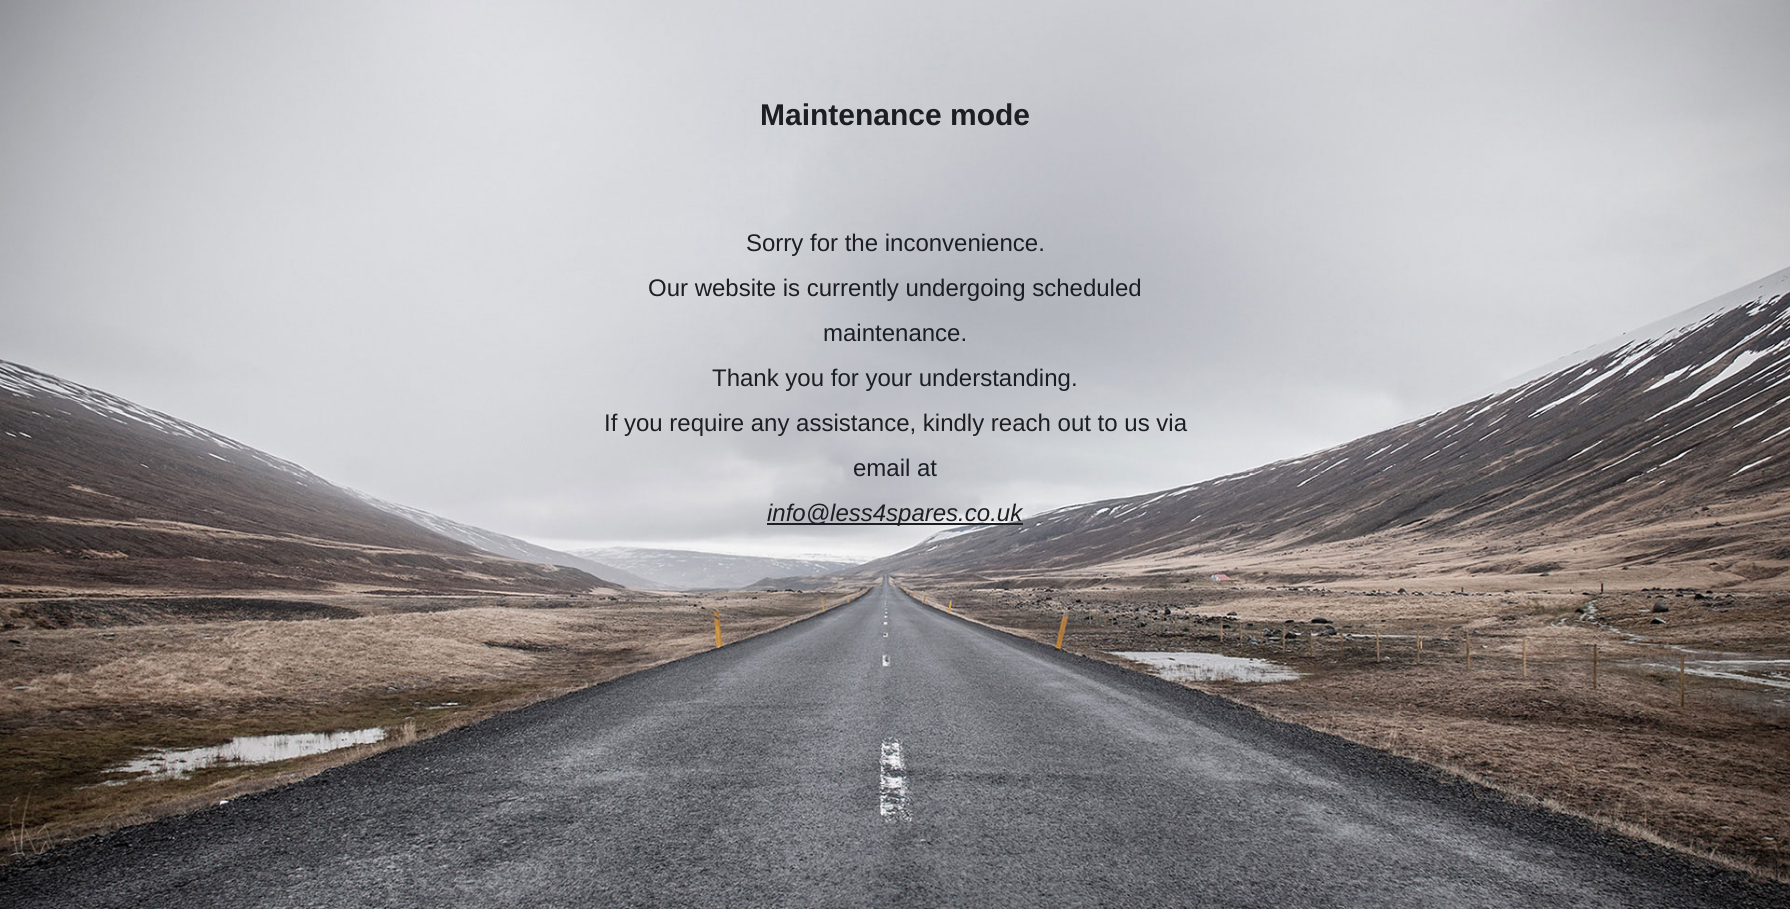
#include <cairo.h>
#include <math.h>
#include <stddef.h>

typedef struct { const char *family; double size; int italic, bold; unsigned color; } style_t;
static cairo_t *ctx;

static void ink(unsigned color) {
    cairo_set_source_rgb(ctx, (color >> 16) / 255.0, (color >> 8 & 255) / 255.0, (color & 255) / 255.0);
}

static void write(double x, double y, const char *s, const style_t *st) {
    cairo_select_font_face(ctx, st->family, st->italic ? CAIRO_FONT_SLANT_ITALIC : CAIRO_FONT_SLANT_NORMAL,
        st->bold ? CAIRO_FONT_WEIGHT_BOLD : CAIRO_FONT_WEIGHT_NORMAL);
    cairo_set_font_size(ctx, st->size);
    ink(st->color);
    cairo_move_to(ctx, x, y);
    cairo_show_text(ctx, s);
}

static void block(double x, double y, double w, double h, unsigned color) {
    ink(color);
    cairo_rectangle(ctx, x, y, w, h);
    cairo_fill(ctx);
}

static void paste(const char *path, double x, double y, double w, double h) {
    cairo_surface_t *image = cairo_image_surface_create_from_png(path);
    cairo_save(ctx);
    cairo_set_source_surface(ctx, image, x, y);
    cairo_rectangle(ctx, x, y, w, h);
    cairo_fill(ctx);
    cairo_restore(ctx);
    cairo_surface_destroy(image);
}

static const style_t s1 = {"Liberation Sans", 30, 0, 1, 0x1b1f23};
static const style_t s2 = {"Liberation Sans", 24, 0, 0, 0x1b1f23};
static const style_t s3 = {"Liberation Sans", 24, 1, 0, 0x1b1f23};

int main(void) {
    cairo_surface_t *surface = cairo_image_surface_create(CAIRO_FORMAT_RGB24, 1790, 909);
    ctx = cairo_create(surface);
    cairo_font_options_t *options = cairo_font_options_create();
    cairo_font_options_set_hint_metrics(options, CAIRO_HINT_METRICS_OFF);
    cairo_font_options_set_hint_style(options, CAIRO_HINT_STYLE_NONE);
    cairo_set_font_options(ctx, options);
    cairo_set_miter_limit(ctx, 4);
    ink(0xffffff);
    cairo_paint(ctx);
    paste("pic1.png", 0, 0, 1790, 909);
    write(760, 125, "Maintenance mode", &s1);
    write(746, 251, "Sorry for the inconvenience.", &s2);
    write(648, 296, "Our website is currently undergoing scheduled", &s2);
    write(823, 341, "maintenance.", &s2);
    write(712, 386, "Thank you for your understanding.", &s2);
    write(604, 431, "If you require any assistance, kindly reach out to us via", &s2);
    write(853, 476, "email at", &s2);
    block(767, 523, 256, 2, 0x1b1f23);
    write(767, 521, "info@less4spares.co.uk", &s3);
    cairo_surface_write_to_png(surface, "screenshot.png");
    cairo_font_options_destroy(options);
    cairo_destroy(ctx);
    cairo_surface_destroy(surface);
    return 0;
}
